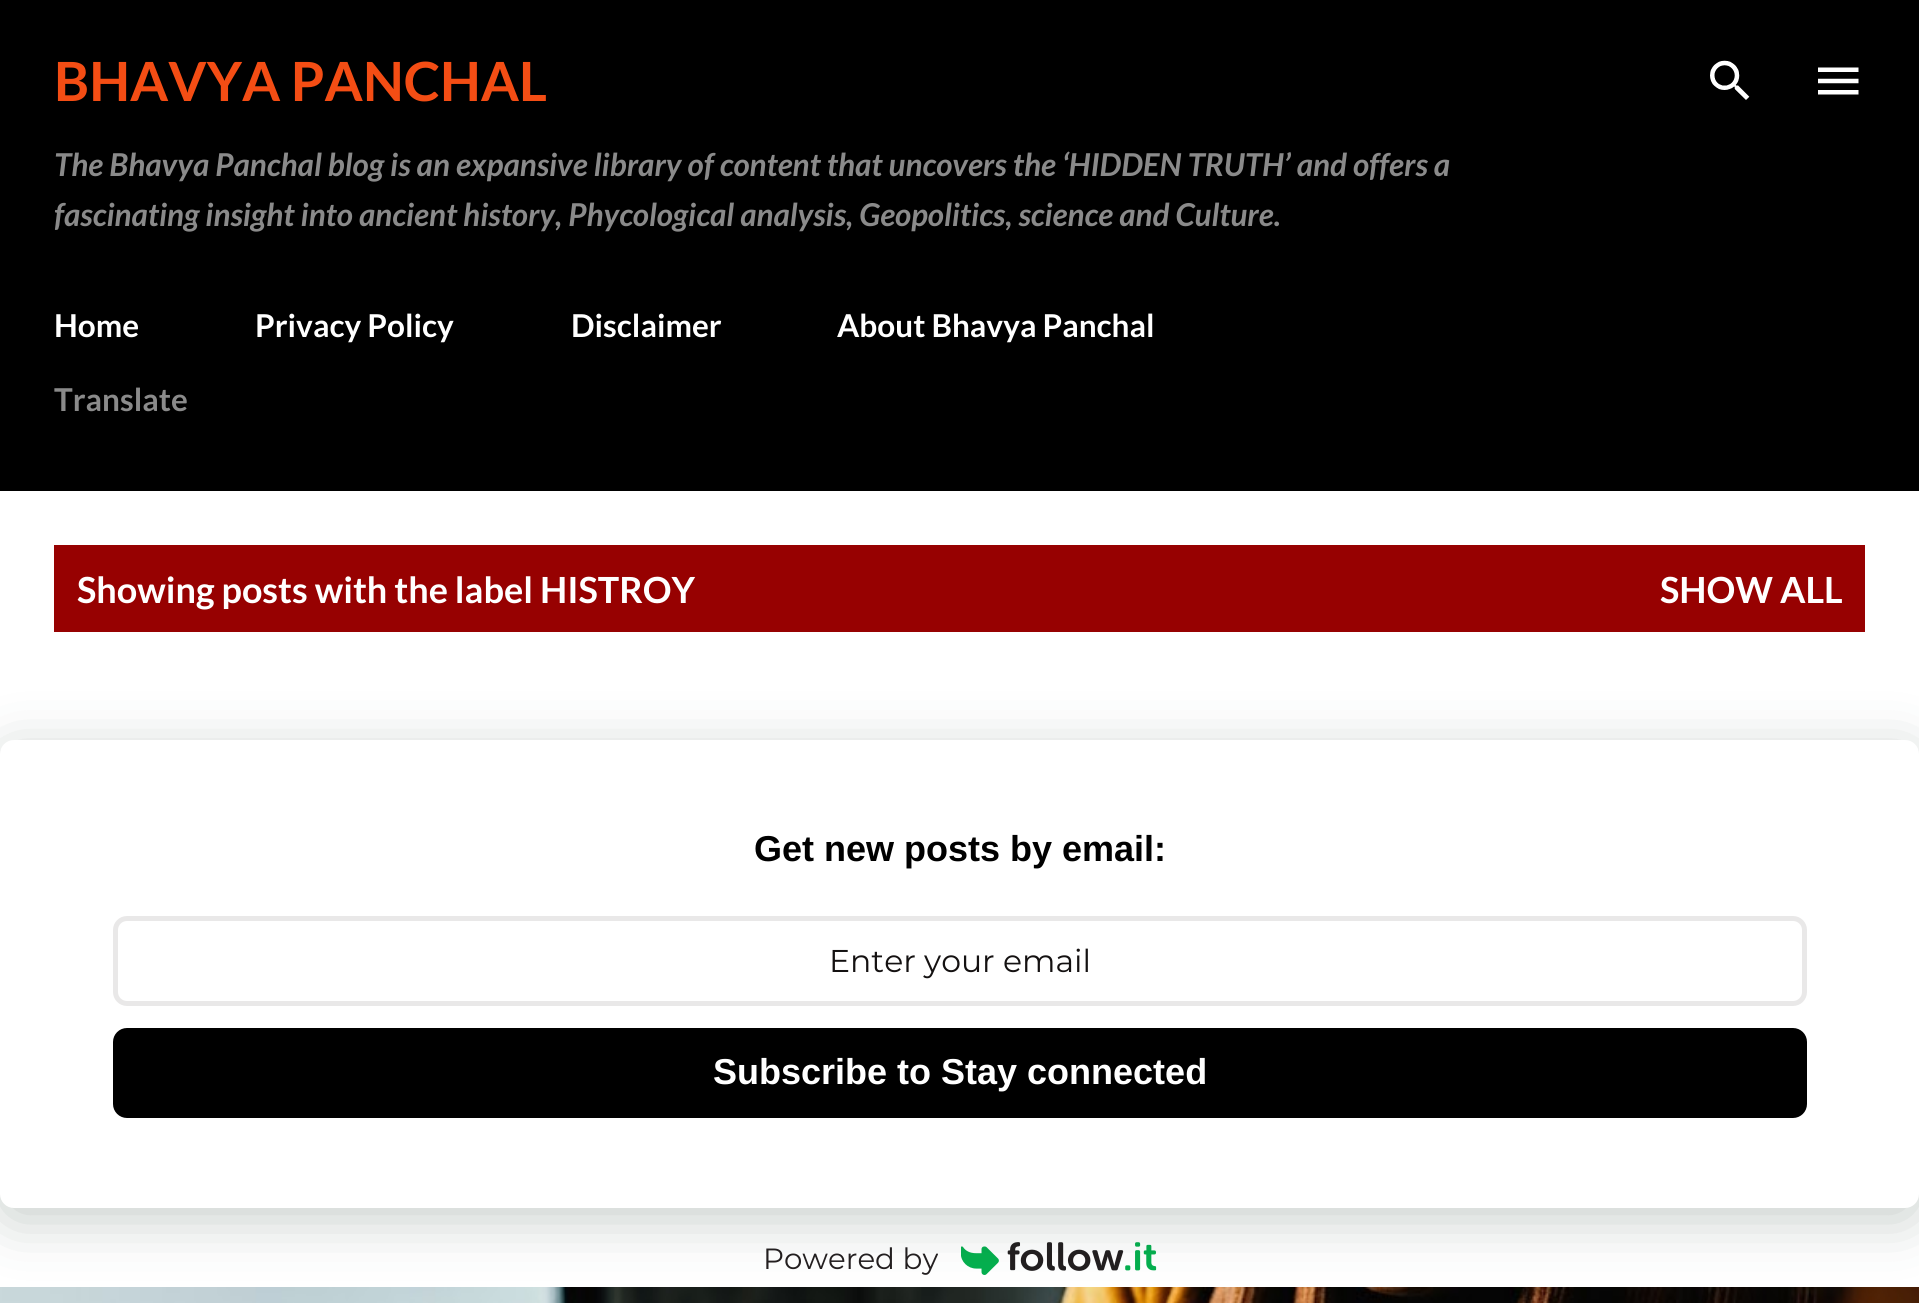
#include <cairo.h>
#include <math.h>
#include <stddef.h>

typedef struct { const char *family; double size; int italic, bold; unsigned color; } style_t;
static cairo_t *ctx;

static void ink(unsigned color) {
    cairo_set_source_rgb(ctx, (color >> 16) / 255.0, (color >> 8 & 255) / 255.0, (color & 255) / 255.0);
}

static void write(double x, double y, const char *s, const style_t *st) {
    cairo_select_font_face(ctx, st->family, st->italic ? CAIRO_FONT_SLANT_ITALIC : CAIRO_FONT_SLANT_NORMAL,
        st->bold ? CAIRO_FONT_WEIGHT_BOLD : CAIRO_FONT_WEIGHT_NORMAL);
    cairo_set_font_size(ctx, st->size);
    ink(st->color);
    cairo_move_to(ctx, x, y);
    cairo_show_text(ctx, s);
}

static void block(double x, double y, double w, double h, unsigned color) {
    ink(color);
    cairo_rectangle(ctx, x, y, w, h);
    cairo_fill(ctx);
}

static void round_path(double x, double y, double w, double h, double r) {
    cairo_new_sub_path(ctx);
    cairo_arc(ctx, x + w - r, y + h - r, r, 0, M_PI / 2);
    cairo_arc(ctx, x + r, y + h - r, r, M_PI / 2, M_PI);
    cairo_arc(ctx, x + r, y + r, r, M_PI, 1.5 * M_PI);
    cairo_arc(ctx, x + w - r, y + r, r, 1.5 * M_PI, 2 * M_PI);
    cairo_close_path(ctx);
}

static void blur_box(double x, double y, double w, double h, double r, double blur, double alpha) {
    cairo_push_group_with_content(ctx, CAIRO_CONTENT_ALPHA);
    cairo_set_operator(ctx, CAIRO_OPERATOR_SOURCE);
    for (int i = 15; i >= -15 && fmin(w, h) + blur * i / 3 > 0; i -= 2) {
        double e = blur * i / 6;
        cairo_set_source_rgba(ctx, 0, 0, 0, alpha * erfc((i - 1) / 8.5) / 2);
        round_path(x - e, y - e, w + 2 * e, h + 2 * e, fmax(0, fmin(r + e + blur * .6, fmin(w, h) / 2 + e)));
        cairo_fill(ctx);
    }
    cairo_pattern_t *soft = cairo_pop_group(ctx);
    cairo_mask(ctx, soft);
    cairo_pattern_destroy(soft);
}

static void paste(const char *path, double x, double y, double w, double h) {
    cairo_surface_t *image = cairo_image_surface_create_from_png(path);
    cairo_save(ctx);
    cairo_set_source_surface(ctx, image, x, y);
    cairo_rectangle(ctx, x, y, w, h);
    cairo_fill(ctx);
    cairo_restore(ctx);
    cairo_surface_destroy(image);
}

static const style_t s1 = {"Lato", 54, 0, 1, 0xf44d14};
static const style_t s2 = {"Lato", 31.5, 1, 1, 0x8a8a8a};
static const style_t s3 = {"Lato", 31.5, 0, 1, 0xffffff};
static const style_t s4 = {"Lato", 31.5, 0, 1, 0x8a8a8a};
static const style_t s5 = {"Lato", 36, 0, 1, 0xffffff};
static const style_t s6 = {"Liberation Sans", 36, 0, 1, 0x000000};
static const style_t s7 = {"Montserrat", 31.5, 0, 0, 0x141111};
static const style_t s8 = {"Liberation Sans", 36, 0, 1, 0xffffff};
static const style_t s9 = {"Montserrat", 29.25, 0, 0, 0x231f20};

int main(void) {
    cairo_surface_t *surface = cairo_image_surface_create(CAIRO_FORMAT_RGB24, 1919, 1303);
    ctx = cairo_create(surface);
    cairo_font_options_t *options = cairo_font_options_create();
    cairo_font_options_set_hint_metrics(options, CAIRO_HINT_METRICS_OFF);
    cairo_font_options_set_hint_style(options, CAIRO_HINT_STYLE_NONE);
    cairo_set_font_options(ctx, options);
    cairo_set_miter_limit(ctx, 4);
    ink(0xffffff);
    cairo_paint(ctx);
    block(0, 0, 1919, 491, 0x000000);
    write(54, 101, "BHAVYA PANCHAL", &s1);
    write(54, 176, "The Bhavya Panchal blog is an expansive library of content that uncovers the ‘HIDDEN TRUTH’ and offers a", &s2);
    write(54, 226, "fascinating insight into ancient history, Phycological analysis, Geopolitics, science and Culture.", &s2);
    paste("pic1.png", 1710, 60, 40, 40);
    paste("pic2.png", 1818, 67, 41, 28);
    write(54, 337, "Home", &s3);
    write(255, 337, "Privacy Policy", &s3);
    write(571, 337, "Disclaimer", &s3);
    write(837, 337, "About Bhavya Panchal", &s3);
    write(54, 411, "Translate", &s4);
    block(54, 545, 1811, 87, 0x970101);
    write(77, 603, "Showing posts with the label HISTROY", &s5);
    write(1660, 603, "SHOW ALL", &s5);
    paste("pic3.png", 961, 1242, 196, 33);
    ink(0x223c2f);
    blur_box(0, 752, 1919, 468, 14, 28, 0.25);
    ink(0xffffff);
    round_path(0, 740, 1919, 468, 14);
    cairo_fill(ctx);
    write(754, 861, "Get new posts by email:", &s6);
    round_path(115.5, 918.5, 1689, 85, 11.5);
    ink(0xe9e8e8);
    cairo_set_line_width(ctx, 5);
    cairo_stroke(ctx);
    write(829, 972, "Enter your email", &s7);
    ink(0x000000);
    round_path(113, 1028, 1694, 90, 14);
    cairo_fill(ctx);
    write(713, 1084, "Subscribe to Stay connected", &s8);
    write(763, 1269, "Powered by", &s9);
    paste("pic4.png", 0, 1287, 1919, 16);
    cairo_surface_write_to_png(surface, "screenshot.png");
    cairo_font_options_destroy(options);
    cairo_destroy(ctx);
    cairo_surface_destroy(surface);
    return 0;
}
